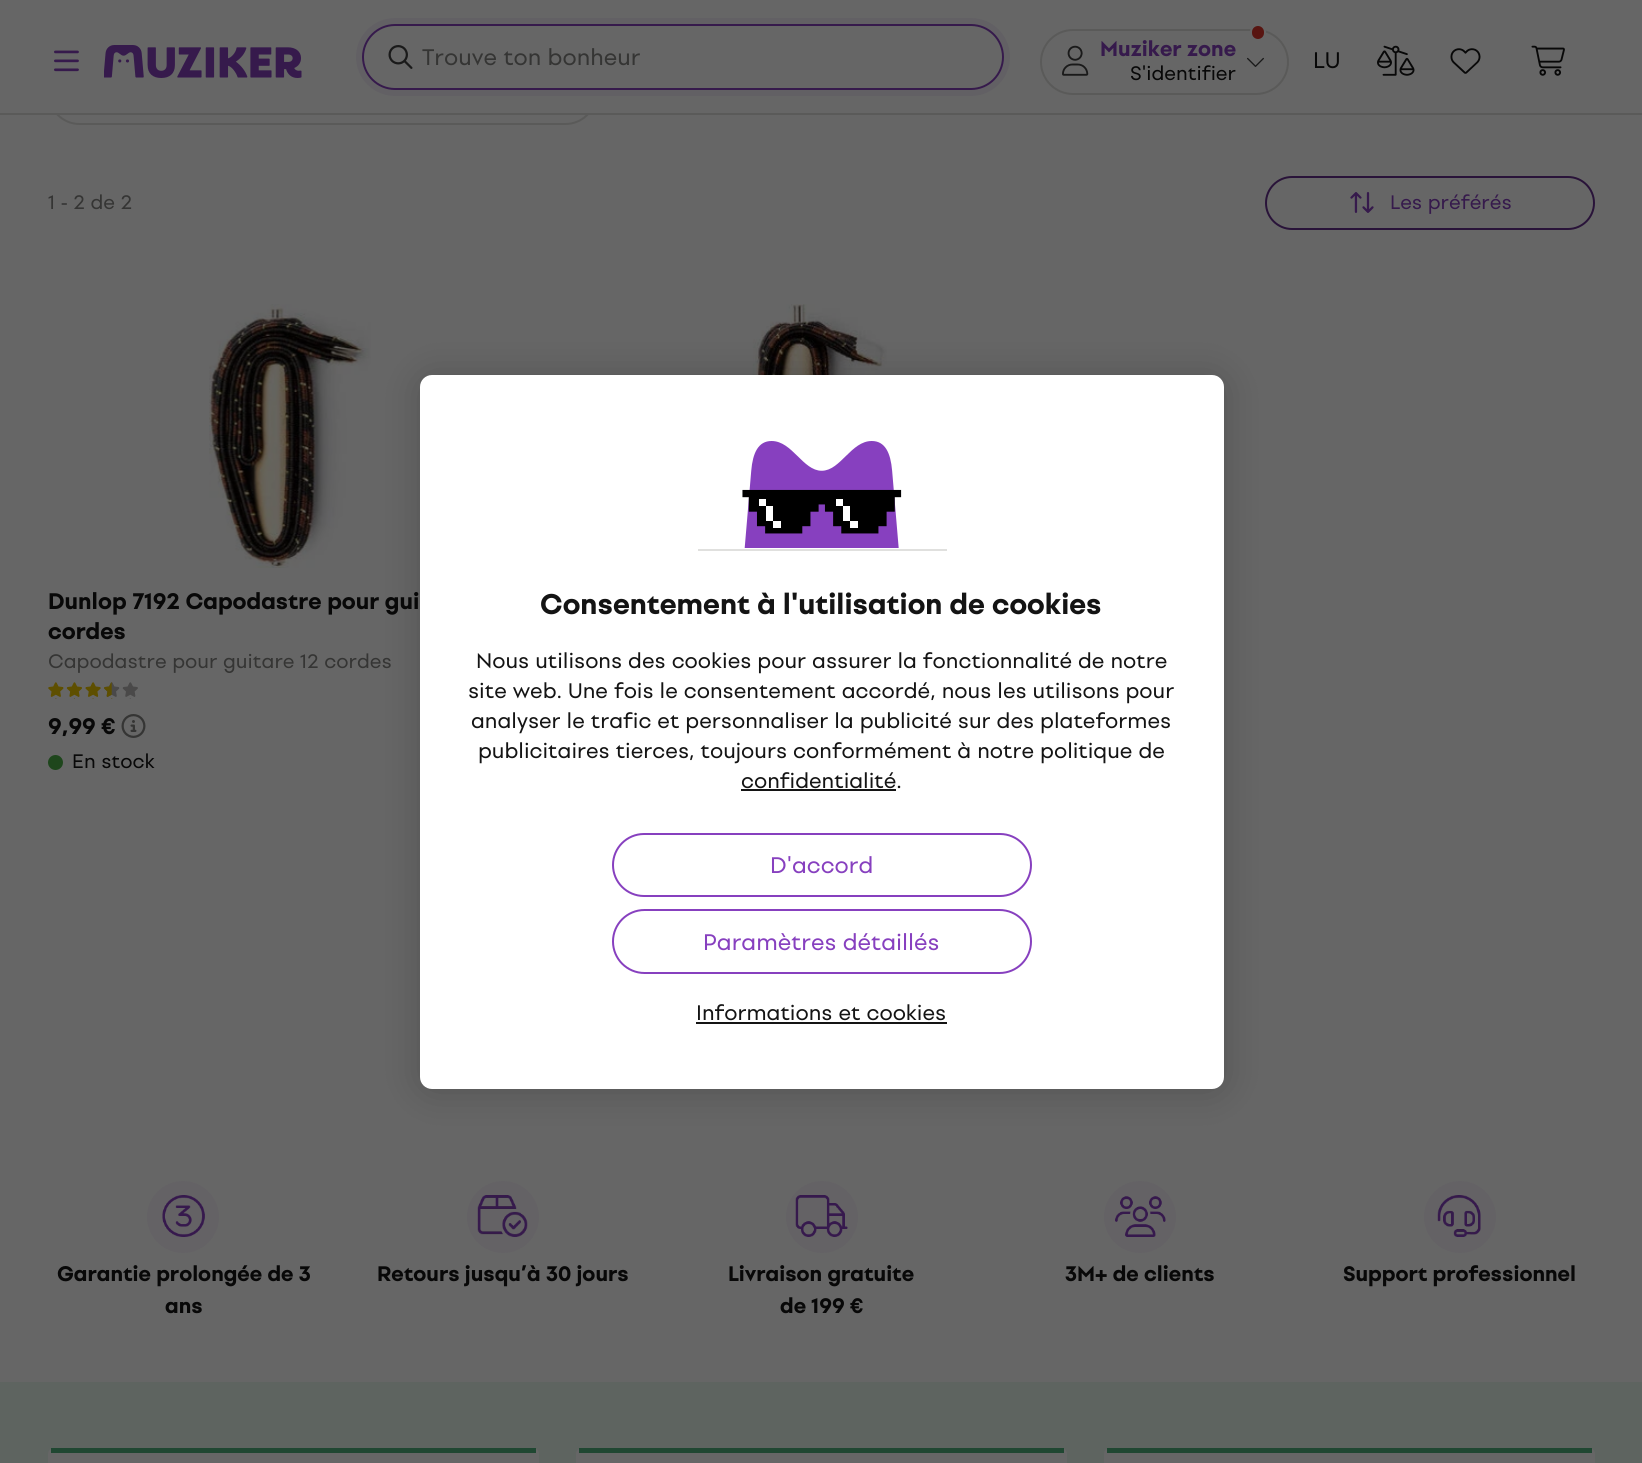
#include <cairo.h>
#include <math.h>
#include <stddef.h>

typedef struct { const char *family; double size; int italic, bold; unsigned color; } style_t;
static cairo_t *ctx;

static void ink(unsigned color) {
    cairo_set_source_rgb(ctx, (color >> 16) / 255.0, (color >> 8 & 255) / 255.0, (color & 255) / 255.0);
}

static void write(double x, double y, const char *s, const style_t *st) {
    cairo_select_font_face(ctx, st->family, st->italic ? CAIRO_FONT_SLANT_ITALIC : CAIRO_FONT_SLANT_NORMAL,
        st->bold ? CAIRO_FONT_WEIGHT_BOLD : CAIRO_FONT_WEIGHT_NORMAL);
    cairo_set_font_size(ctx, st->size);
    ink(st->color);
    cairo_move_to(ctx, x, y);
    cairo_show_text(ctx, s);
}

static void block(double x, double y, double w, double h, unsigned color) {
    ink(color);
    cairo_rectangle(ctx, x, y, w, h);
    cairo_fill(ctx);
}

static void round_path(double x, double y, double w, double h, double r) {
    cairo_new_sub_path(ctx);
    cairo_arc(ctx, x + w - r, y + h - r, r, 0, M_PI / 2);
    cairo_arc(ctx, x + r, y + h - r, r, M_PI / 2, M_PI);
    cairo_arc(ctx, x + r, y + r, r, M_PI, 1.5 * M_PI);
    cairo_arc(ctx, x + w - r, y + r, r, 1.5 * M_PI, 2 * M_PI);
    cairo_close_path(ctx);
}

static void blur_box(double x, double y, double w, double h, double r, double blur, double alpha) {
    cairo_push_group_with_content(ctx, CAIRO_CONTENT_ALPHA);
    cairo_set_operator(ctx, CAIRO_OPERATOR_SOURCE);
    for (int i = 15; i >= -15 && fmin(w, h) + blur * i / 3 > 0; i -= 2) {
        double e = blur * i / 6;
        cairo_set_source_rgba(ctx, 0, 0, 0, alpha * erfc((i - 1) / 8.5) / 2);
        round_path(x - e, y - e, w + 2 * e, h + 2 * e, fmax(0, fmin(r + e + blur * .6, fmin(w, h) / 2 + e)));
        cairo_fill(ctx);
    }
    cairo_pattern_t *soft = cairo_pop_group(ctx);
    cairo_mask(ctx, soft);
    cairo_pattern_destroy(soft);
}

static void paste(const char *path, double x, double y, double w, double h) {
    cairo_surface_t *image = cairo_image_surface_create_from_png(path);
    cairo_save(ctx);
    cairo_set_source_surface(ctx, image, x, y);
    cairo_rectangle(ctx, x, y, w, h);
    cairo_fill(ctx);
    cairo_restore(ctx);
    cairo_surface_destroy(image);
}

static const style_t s1 = {"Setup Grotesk", 22.5, 0, 0, 0x353534};
static const style_t s2 = {"Setup Grotesk", 21, 0, 1, 0x361a4c};
static const style_t s3 = {"Setup Grotesk", 19.5, 0, 0, 0x080808};
static const style_t s4 = {"Setup Grotesk", 22.5, 0, 0, 0x080808};
static const style_t s5 = {"Setup Grotesk", 19.5, 0, 0, 0x353534};
static const style_t s6 = {"Setup Grotesk", 19.5, 0, 0, 0x361a4c};
static const style_t s7 = {"Setup Grotesk", 22.5, 0, 1, 0x080808};
static const style_t s8 = {"Setup Grotesk", 21, 0, 1, 0x080808};
static const style_t s9 = {"Setup Grotesk", 28.5, 0, 1, 0x141414};
static const style_t s10 = {"Setup Grotesk", 21, 0, 0, 0x141414};
static const style_t s11 = {"Setup Grotesk", 22.5, 0, 0, 0x8740bf};

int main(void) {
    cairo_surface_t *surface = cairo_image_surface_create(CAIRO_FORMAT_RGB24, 1642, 1463);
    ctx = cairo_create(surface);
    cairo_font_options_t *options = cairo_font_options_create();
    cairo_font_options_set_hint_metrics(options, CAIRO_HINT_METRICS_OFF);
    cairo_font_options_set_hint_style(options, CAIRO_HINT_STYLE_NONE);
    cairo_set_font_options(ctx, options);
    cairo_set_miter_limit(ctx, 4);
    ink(0x666666);
    cairo_paint(ctx);
    round_path(49, 63, 547, 61, 30.5);
    ink(0x5a5a59);
    cairo_stroke(ctx);
    block(48, 62, 549, 51, 0x666666);
    block(0, 113, 1642, 2, 0x5a5a59);
    paste("pic1.png", 54, 50, 25, 22);
    paste("pic2.png", 104, 45, 198, 33);
    round_path(359, 21, 648, 72, 36);
    ink(0x626064);
    cairo_set_line_width(ctx, 6);
    cairo_stroke(ctx);
    round_path(363, 25, 640, 64, 32);
    ink(0x361a4c);
    cairo_set_line_width(ctx, 2);
    cairo_stroke(ctx);
    paste("pic3.png", 388, 45, 25, 24);
    write(422, 65, "Trouve ton bonheur", &s1);
    round_path(1041, 30, 247, 64, 32);
    ink(0x5a5a59);
    cairo_stroke(ctx);
    ink(0x581511);
    round_path(1251, 25, 14, 15, 7);
    cairo_fill_preserve(ctx);
    ink(0x666666);
    cairo_stroke(ctx);
    paste("pic4.png", 1062, 45, 27, 31);
    write(1100, 56, "Muziker zone", &s2);
    write(1130, 80, "S'identifier", &s3);
    paste("pic5.png", 1247, 57, 17, 10);
    write(1313, 68, "LU", &s4);
    paste("pic6.png", 1377, 45, 38, 31);
    paste("pic7.png", 1450, 48, 31, 26);
    paste("pic8.png", 1531, 45, 34, 31);
    write(48, 209, "1 - 2 de 2", &s5);
    round_path(1266, 177, 328, 52, 26);
    ink(0x291339);
    cairo_stroke(ctx);
    paste("pic9.png", 1350, 192, 24, 21);
    write(1390, 209, "Les préférés", &s6);
    paste("pic10.png", 752, 304, 135, 71);
    paste("pic11.png", 209, 304, 162, 264);
    write(48, 609, "Dunlop 7192 Capodastre pour gui", &s7);
    write(48, 639, "cordes", &s7);
    write(48, 668, "Capodastre pour guitare 12 cordes", &s5);
    paste("pic12.png", 48, 682, 90, 17);
    write(48, 734, "9,99 €", &s7);
    paste("pic13.png", 121, 714, 25, 24);
    ink(0x1e461c);
    cairo_arc(ctx, 55.5, 762.5, 7.5, 0, 2 * M_PI);
    cairo_fill(ctx);
    write(72, 768, "En stock", &s3);
    ink(0x646265);
    cairo_new_path(ctx);
    cairo_arc(ctx, 183, 1217, 36, 0, 2 * M_PI);
    cairo_fill(ctx);
    paste("pic14.png", 162, 1195, 43, 42);
    write(57, 1281, "Garantie prolongée de 3", &s8);
    write(165, 1313, "ans", &s8);
    ink(0x646265);
    cairo_new_path(ctx);
    cairo_arc(ctx, 503, 1217, 36, 0, 2 * M_PI);
    cairo_fill(ctx);
    paste("pic15.png", 477, 1195, 51, 42);
    write(377, 1281, "Retours jusqu’à 30 jours", &s8);
    ink(0x646265);
    cairo_new_path(ctx);
    cairo_arc(ctx, 822, 1217, 36, 0, 2 * M_PI);
    cairo_fill(ctx);
    paste("pic16.png", 795, 1195, 53, 42);
    write(728, 1281, "Livraison gratuite", &s8);
    write(780, 1313, "de 199 €", &s8);
    ink(0x646265);
    cairo_new_path(ctx);
    cairo_arc(ctx, 1140, 1217, 36, 0, 2 * M_PI);
    cairo_fill(ctx);
    paste("pic17.png", 1115, 1196, 51, 41);
    write(1065, 1281, "3M+ de clients", &s8);
    ink(0x646265);
    cairo_new_path(ctx);
    cairo_arc(ctx, 1460, 1217, 36, 0, 2 * M_PI);
    cairo_fill(ctx);
    paste("pic18.png", 1437, 1195, 44, 42);
    write(1343, 1281, "Support professionnel", &s8);
    block(0, 1382, 1642, 81, 0x5e6460);
    ink(0x666666);
    round_path(48, 1448, 491, 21, 6);
    cairo_fill(ctx);
    block(51, 1448, 485, 5, 0x204732);
    ink(0x666666);
    round_path(576, 1448, 491, 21, 6);
    cairo_fill(ctx);
    block(579, 1448, 485, 5, 0x204732);
    ink(0x666666);
    round_path(1104, 1448, 491, 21, 6);
    cairo_fill(ctx);
    block(1107, 1448, 485, 5, 0x204732);
    ink(0x000000);
    blur_box(420, 377, 804, 714, 12, 19, 0.2);
    ink(0xffffff);
    round_path(420, 375, 804, 714, 12);
    cairo_fill(ctx);
    block(698, 549, 249, 2, 0xe0e0de);
    paste("pic19.png", 744, 441, 155, 107);
    paste("pic20.png", 742, 489, 160, 45);
    write(540, 614, "Consentement à l'utilisation de cookies", &s9);
    write(476, 668, "Nous utilisons des cookies pour assurer la fonctionnalité de notre", &s10);
    write(468, 698, "site web. Une fois le consentement accordé, nous les utilisons pour", &s10);
    write(471, 728, "analyser le trafic et personnaliser la publicité sur des plateformes", &s10);
    write(478, 758, "publicitaires tierces, toujours conformément à notre politique de", &s10);
    write(741, 788, "confidentialité.", &s10);
    block(741, 789, 155, 2, 0x141414);
    round_path(613, 834, 418, 62, 31);
    ink(0x8740bf);
    cairo_stroke(ctx);
    write(770, 873, "D'accord", &s11);
    round_path(613, 910, 418, 63, 31.5);
    cairo_stroke(ctx);
    write(703, 950, "Paramètres détaillés", &s11);
    write(696, 1020, "Informations et cookies", &s10);
    block(696, 1022, 251, 2, 0x141414);
    cairo_surface_write_to_png(surface, "screenshot.png");
    cairo_font_options_destroy(options);
    cairo_destroy(ctx);
    cairo_surface_destroy(surface);
    return 0;
}
